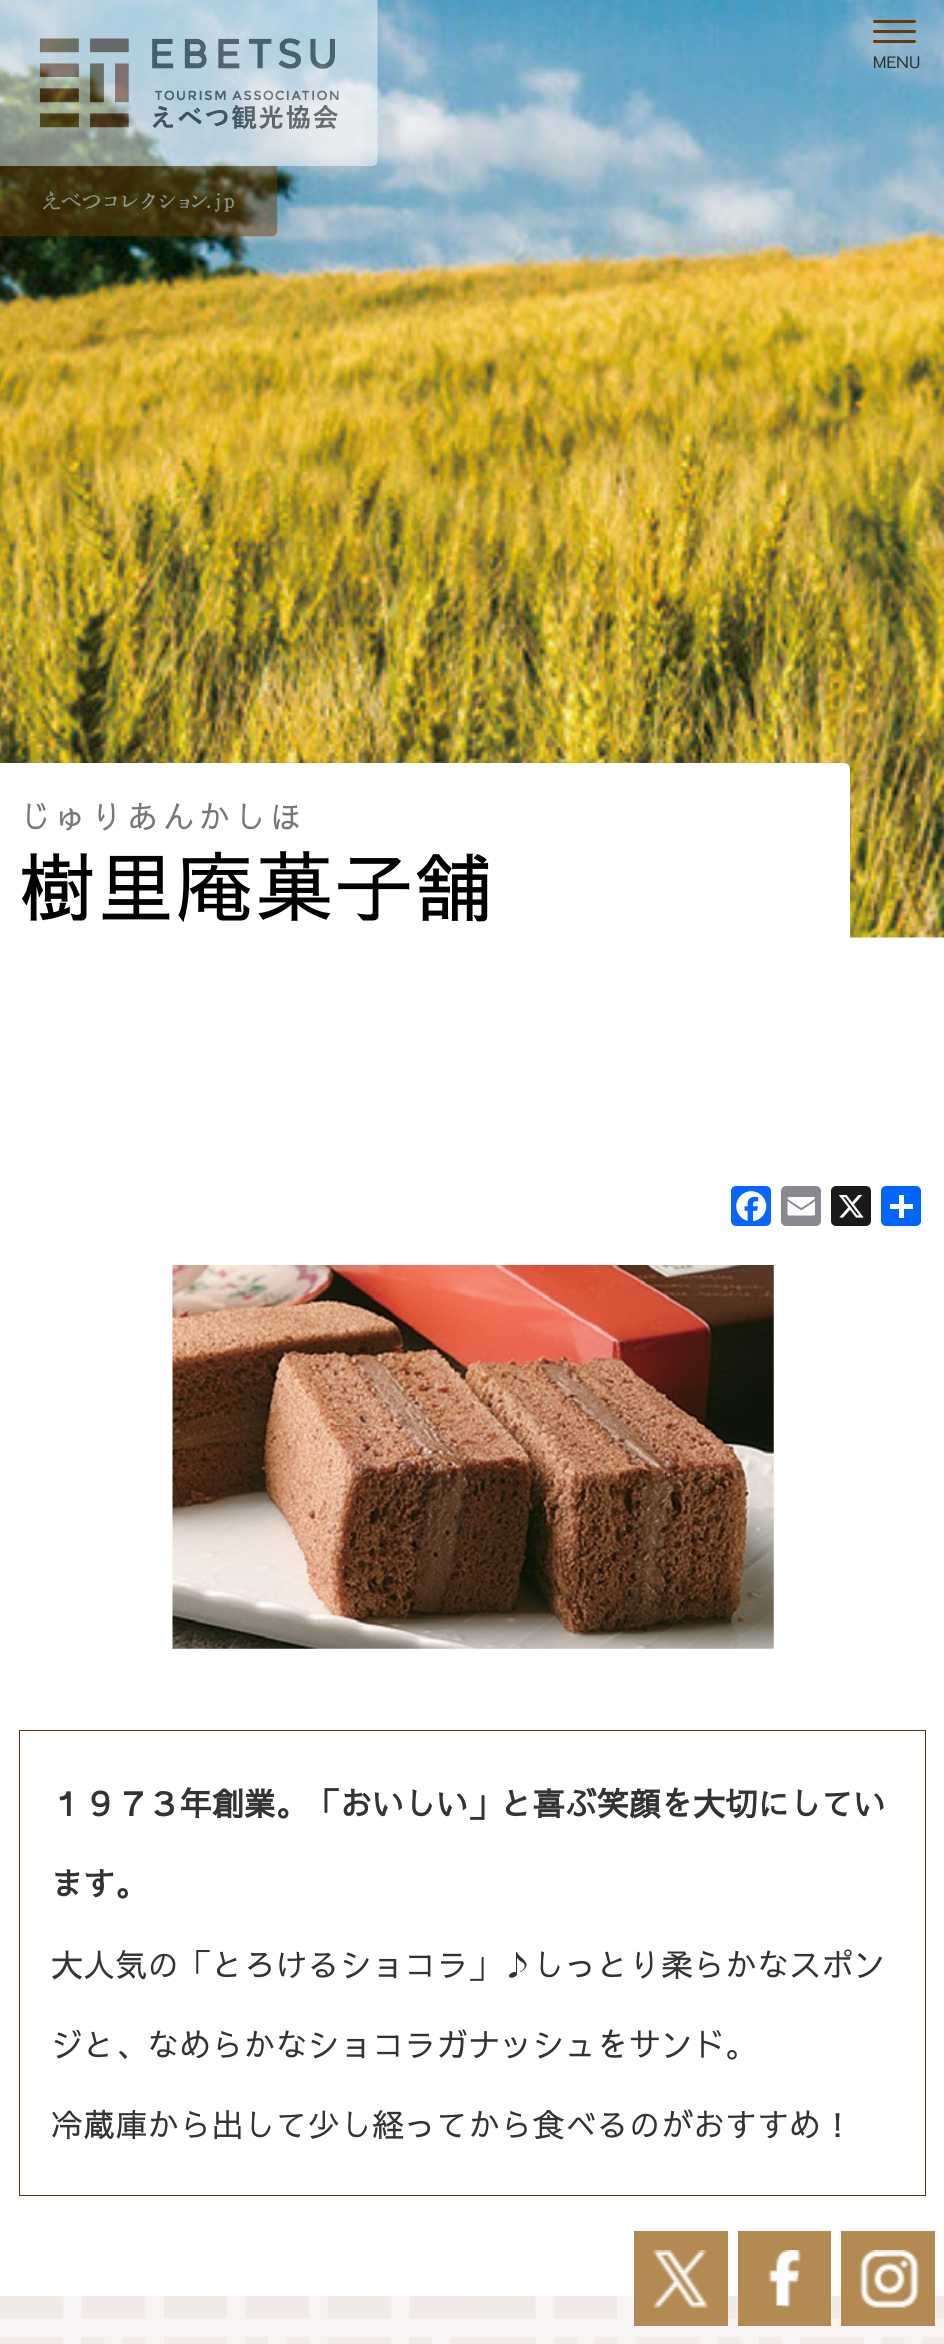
#include <cairo.h>
#include <math.h>
#include <stddef.h>

typedef struct { const char *family; double size; int italic, bold; unsigned color; } style_t;
static cairo_t *ctx;

static void ink(unsigned color) {
    cairo_set_source_rgb(ctx, (color >> 16) / 255.0, (color >> 8 & 255) / 255.0, (color & 255) / 255.0);
}

static void write(double x, double y, const char *s, const style_t *st) {
    cairo_select_font_face(ctx, st->family, st->italic ? CAIRO_FONT_SLANT_ITALIC : CAIRO_FONT_SLANT_NORMAL,
        st->bold ? CAIRO_FONT_WEIGHT_BOLD : CAIRO_FONT_WEIGHT_NORMAL);
    cairo_set_font_size(ctx, st->size);
    ink(st->color);
    cairo_move_to(ctx, x, y);
    cairo_show_text(ctx, s);
}

static void write_spaced(double x, double y, const char *s, double letter, double word) {
    cairo_move_to(ctx, x, y);
    while (*s) {
        char ch[5] = {0};
        int n = 0;
        do ch[n++] = *s++; while ((*s & 0xC0) == 0x80);
        cairo_show_text(ctx, ch);
        cairo_rel_move_to(ctx, letter + word * (*ch == ' '), 0);
    }
}

static void block(double x, double y, double w, double h, unsigned color) {
    ink(color);
    cairo_rectangle(ctx, x, y, w, h);
    cairo_fill(ctx);
}

static void round_path(double x, double y, double w, double h, double r) {
    cairo_new_sub_path(ctx);
    cairo_arc(ctx, x + w - r, y + h - r, r, 0, M_PI / 2);
    cairo_arc(ctx, x + r, y + h - r, r, M_PI / 2, M_PI);
    cairo_arc(ctx, x + r, y + r, r, M_PI, 1.5 * M_PI);
    cairo_arc(ctx, x + w - r, y + r, r, 1.5 * M_PI, 2 * M_PI);
    cairo_close_path(ctx);
}

static void paste(const char *path, double x, double y, double w, double h) {
    cairo_surface_t *image = cairo_image_surface_create_from_png(path);
    cairo_save(ctx);
    cairo_set_source_surface(ctx, image, x, y);
    cairo_rectangle(ctx, x, y, w, h);
    cairo_fill(ctx);
    cairo_restore(ctx);
    cairo_surface_destroy(image);
}

static const style_t s1 = {"Sawarabi Gothic", 16, 0, 0, 0x333333};
static const style_t s2 = {"Sawarabi Gothic", 32.1, 0, 1, 0x333333};
static const style_t s3 = {"Sawarabi Gothic", 32.1, 0, 0, 0x333333};

int main(void) {
    cairo_surface_t *surface = cairo_image_surface_create(CAIRO_FORMAT_RGB24, 944, 2344);
    ctx = cairo_create(surface);
    cairo_font_options_t *options = cairo_font_options_create();
    cairo_font_options_set_hint_metrics(options, CAIRO_HINT_METRICS_OFF);
    cairo_font_options_set_hint_style(options, CAIRO_HINT_STYLE_NONE);
    cairo_set_font_options(ctx, options);
    cairo_set_miter_limit(ctx, 4);
    ink(0xffffff);
    cairo_paint(ctx);
    paste("pic1.png", 0, 0, 944, 938);
    paste("pic2.png", 0, 0, 378, 237);
    ink(0x6a3906);
    round_path(873, 20, 43, 3, 1.5);
    cairo_fill(ctx);
    round_path(873, 30, 43, 3, 1.5);
    cairo_fill(ctx);
    round_path(873, 40, 43, 3, 1.5);
    cairo_fill(ctx);
    write(873, 68, "MENU", &s1);
    ink(0xffffff);
    cairo_new_path(ctx);
    cairo_move_to(ctx, 0, 763);
    cairo_line_to(ctx, 844, 763);
    cairo_curve_to(ctx, 847.5, 763, 850, 765.5, 850, 769);
    cairo_line_to(ctx, 850, 938);
    cairo_line_to(ctx, 0, 938);
    cairo_close_path(ctx);
    cairo_fill(ctx);
    cairo_set_font_size(ctx, 32.1);
    ink(0x777777);
    write_spaced(19, 829, "じゅりあんかしほ", 3.75, 0);
    cairo_set_font_size(ctx, 75.5);
    ink(0x000000);
    write_spaced(19, 916, "樹里庵菓子舗", 3.75, 0);
    ink(0x0866ff);
    round_path(731, 1186, 40, 40, 5);
    cairo_fill(ctx);
    paste("pic3.png", 736, 1191, 31, 31);
    ink(0x888990);
    round_path(781, 1186, 40, 40, 5);
    cairo_fill(ctx);
    paste("pic4.png", 787, 1197, 28, 19);
    ink(0x1a1a1a);
    round_path(831, 1186, 40, 40, 5);
    cairo_fill(ctx);
    paste("pic5.png", 838, 1195, 26, 23);
    ink(0x0166ff);
    round_path(881, 1186, 40, 40, 5);
    cairo_fill(ctx);
    block(899, 1195, 5, 23, 0xffffff);
    block(890, 1204, 23, 5, 0xffffff);
    paste("pic6.png", 172, 1265, 602, 384);
    cairo_rectangle(ctx, 19.5, 1730.5, 906, 465);
    ink(0x6f2b0f);
    cairo_set_line_width(ctx, 1);
    cairo_stroke(ctx);
    write(51, 1816, "１９７３年創業。「おいしい」と喜ぶ笑顔を大切にしてい", &s2);
    write(51, 1896, "ます。", &s2);
    write(51, 1977, "大人気の「とろけるショコラ」♪しっとり柔らかなスポン", &s3);
    write(51, 2057, "ジと、なめらかなショコラガナッシュをサンド。", &s3);
    write(51, 2137, "冷蔵庫から出して少し経ってから食べるのがおすすめ！", &s3);
    block(0, 2296, 944, 48, 0xf8f4f3);
    paste("pic7.png", 0, 2296, 944, 48);
    block(634, 2231, 94, 95, 0xb28a52);
    paste("pic8.png", 653, 2250, 55, 58);
    block(738, 2231, 93, 95, 0xb28a52);
    paste("pic9.png", 768, 2250, 33, 58);
    block(841, 2231, 94, 95, 0xb28a52);
    paste("pic10.png", 859, 2250, 61, 58);
    cairo_surface_write_to_png(surface, "screenshot.png");
    cairo_font_options_destroy(options);
    cairo_destroy(ctx);
    cairo_surface_destroy(surface);
    return 0;
}
